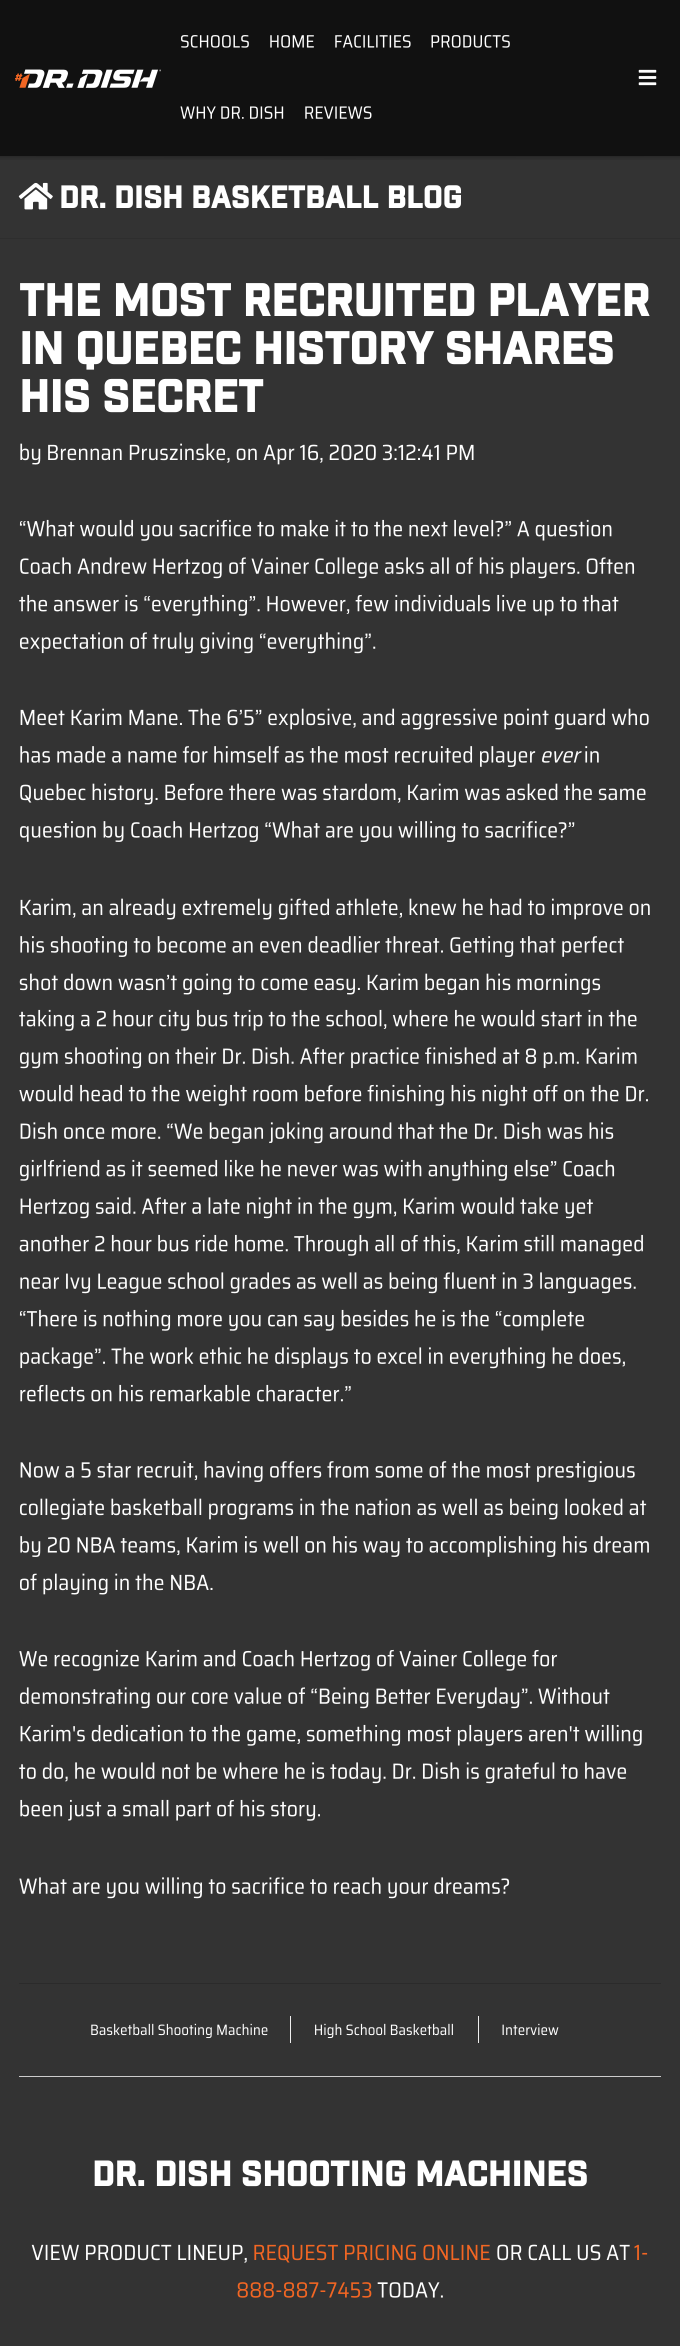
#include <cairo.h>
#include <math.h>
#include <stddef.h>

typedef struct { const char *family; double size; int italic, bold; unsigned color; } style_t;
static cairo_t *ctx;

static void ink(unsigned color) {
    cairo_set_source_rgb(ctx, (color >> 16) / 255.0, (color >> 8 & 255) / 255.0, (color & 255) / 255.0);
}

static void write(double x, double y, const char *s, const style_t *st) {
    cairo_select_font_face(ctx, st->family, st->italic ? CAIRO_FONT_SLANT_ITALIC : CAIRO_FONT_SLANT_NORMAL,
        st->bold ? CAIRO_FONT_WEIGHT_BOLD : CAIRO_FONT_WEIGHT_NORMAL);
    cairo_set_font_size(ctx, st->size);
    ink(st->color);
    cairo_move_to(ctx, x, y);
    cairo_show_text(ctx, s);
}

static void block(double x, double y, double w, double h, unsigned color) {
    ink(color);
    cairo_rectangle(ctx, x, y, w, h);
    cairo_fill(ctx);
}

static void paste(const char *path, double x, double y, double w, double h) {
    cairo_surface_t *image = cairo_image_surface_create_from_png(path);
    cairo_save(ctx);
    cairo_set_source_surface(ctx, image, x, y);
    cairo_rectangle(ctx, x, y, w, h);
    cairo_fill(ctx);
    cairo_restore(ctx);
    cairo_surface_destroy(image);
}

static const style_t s1 = {"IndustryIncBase", 30.25, 0, 1, 0xffffff};
static const style_t s2 = {"IndustryIncBase", 44, 0, 1, 0xffffff};
static const style_t s3 = {"IndustryIncBase", 34.1, 0, 1, 0xffffff};

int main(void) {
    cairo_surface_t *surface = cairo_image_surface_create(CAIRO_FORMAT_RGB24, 680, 2346);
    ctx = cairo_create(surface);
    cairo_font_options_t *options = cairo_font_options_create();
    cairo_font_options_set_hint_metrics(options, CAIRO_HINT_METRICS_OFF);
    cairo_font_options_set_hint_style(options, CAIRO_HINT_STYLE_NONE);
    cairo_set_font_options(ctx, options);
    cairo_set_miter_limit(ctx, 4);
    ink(0x333333);
    cairo_paint(ctx);
    block(0, 0, 680, 156, 0x111111);
    paste("pic1.png", 15, 69, 146, 19);
    paste("pic2.png", 181, 35, 68, 13);
    paste("pic3.png", 270, 35, 44, 13);
    paste("pic4.png", 335, 35, 76, 13);
    paste("pic5.png", 431, 35, 79, 13);
    paste("pic6.png", 180, 106, 104, 13);
    paste("pic7.png", 305, 106, 67, 13);
    paste("pic8.png", 638, 69, 19, 17);
    block(0, 156, 680, 1, 0x2e2e2e);
    paste("pic9.png", 0, 156, 680, 4);
    block(0, 238, 680, 1, 0x2e2e2e);
    paste("pic10.png", 18, 182, 35, 28);
    write(59, 208, "Dr. Dish Basketball Blog", &s1);
    write(19, 316, "The Most Recruited Player", &s2);
    write(19, 364, "in Quebec History Shares", &s2);
    write(19, 412, "His Secret", &s2);
    paste("pic11.png", 20, 443, 21, 22);
    paste("pic12.png", 48, 443, 178, 18);
    paste("pic13.png", 227, 444, 247, 21);
    paste("pic14.png", 19, 519, 593, 22);
    paste("pic15.png", 20, 557, 615, 22);
    paste("pic16.png", 19, 594, 600, 22);
    paste("pic17.png", 20, 632, 356, 22);
    paste("pic18.png", 20, 708, 629, 22);
    paste("pic19.png", 20, 746, 516, 21);
    paste("pic20.png", 542, 751, 40, 12);
    paste("pic21.png", 585, 746, 14, 17);
    paste("pic22.png", 20, 783, 626, 22);
    paste("pic23.png", 20, 821, 555, 21);
    paste("pic24.png", 20, 898, 630, 22);
    paste("pic25.png", 20, 936, 604, 21);
    paste("pic26.png", 19, 973, 582, 22);
    paste("pic27.png", 19, 1009, 618, 22);
    paste("pic28.png", 20, 1047, 617, 22);
    paste("pic29.png", 19, 1084, 629, 22);
    paste("pic30.png", 20, 1122, 594, 22);
    paste("pic31.png", 20, 1159, 595, 22);
    paste("pic32.png", 20, 1197, 573, 22);
    paste("pic33.png", 19, 1234, 624, 22);
    paste("pic34.png", 20, 1272, 616, 22);
    paste("pic35.png", 19, 1309, 565, 22);
    paste("pic36.png", 20, 1347, 605, 22);
    paste("pic37.png", 20, 1384, 331, 18);
    paste("pic38.png", 20, 1461, 615, 21);
    paste("pic39.png", 20, 1498, 627, 22);
    paste("pic40.png", 20, 1536, 629, 21);
    paste("pic41.png", 20, 1573, 193, 22);
    paste("pic42.png", 19, 1649, 539, 22);
    paste("pic43.png", 20, 1687, 590, 22);
    paste("pic44.png", 20, 1724, 622, 22);
    paste("pic45.png", 19, 1762, 608, 22);
    paste("pic46.png", 20, 1799, 300, 22);
    paste("pic47.png", 19, 1877, 491, 22);
    block(19, 1983, 642, 1, 0x2b2b2b);
    block(19, 2076, 642, 1, 0xcccccc);
    paste("pic48.png", 91, 2023, 177, 16);
    block(290, 2016, 1, 27, 0xeeeeee);
    paste("pic49.png", 315, 2023, 138, 16);
    block(478, 2016, 1, 27, 0xeeeeee);
    paste("pic50.png", 502, 2023, 57, 13);
    write(92, 2186, "DR. DISH SHOOTING MACHINES", &s3);
    paste("pic51.png", 31, 2244, 216, 19);
    paste("pic52.png", 254, 2244, 236, 19);
    paste("pic53.png", 497, 2244, 133, 17);
    paste("pic54.png", 634, 2244, 14, 16);
    paste("pic55.png", 237, 2282, 135, 16);
    paste("pic56.png", 377, 2282, 66, 16);
    cairo_surface_write_to_png(surface, "screenshot.png");
    cairo_font_options_destroy(options);
    cairo_destroy(ctx);
    cairo_surface_destroy(surface);
    return 0;
}
